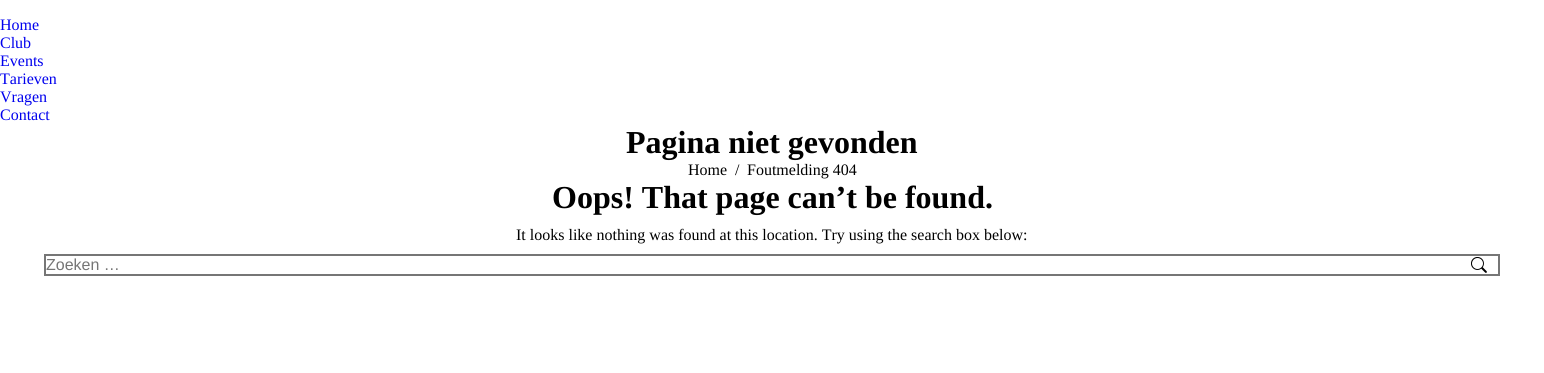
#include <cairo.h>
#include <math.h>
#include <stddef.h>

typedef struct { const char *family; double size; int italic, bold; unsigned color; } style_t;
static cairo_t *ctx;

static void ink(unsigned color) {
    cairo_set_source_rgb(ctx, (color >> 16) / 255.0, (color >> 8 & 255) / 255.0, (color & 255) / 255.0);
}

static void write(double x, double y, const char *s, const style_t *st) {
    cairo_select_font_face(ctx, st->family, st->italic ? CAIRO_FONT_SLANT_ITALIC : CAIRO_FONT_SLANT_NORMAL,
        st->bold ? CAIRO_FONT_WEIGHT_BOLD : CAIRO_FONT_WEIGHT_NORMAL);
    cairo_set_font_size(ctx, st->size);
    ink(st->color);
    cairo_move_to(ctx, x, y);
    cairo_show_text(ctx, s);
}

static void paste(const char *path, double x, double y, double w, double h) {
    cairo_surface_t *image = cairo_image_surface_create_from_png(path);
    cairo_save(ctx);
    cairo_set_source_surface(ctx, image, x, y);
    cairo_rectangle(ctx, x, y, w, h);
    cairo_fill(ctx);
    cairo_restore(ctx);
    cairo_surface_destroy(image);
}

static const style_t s1 = {"Liberation Serif", 16, 0, 0, 0x0000ee};
static const style_t s2 = {"Liberation Serif", 32, 0, 1, 0x000000};
static const style_t s3 = {"Liberation Serif", 16, 0, 0, 0x000000};
static const style_t s4 = {"Liberation Sans", 16, 0, 0, 0x757575};

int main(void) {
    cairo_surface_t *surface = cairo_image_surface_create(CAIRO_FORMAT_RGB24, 1544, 373);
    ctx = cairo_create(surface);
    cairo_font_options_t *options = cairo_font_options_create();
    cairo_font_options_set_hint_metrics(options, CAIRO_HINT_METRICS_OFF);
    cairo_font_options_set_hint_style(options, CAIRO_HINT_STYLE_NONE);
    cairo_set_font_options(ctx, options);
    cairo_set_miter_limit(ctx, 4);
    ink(0xffffff);
    cairo_paint(ctx);
    write(0, 30, "Home", &s1);
    write(0, 48, "Club", &s1);
    write(0, 66, "Events", &s1);
    write(0, 84, "Tarieven", &s1);
    write(0, 102, "Vragen", &s1);
    write(0, 120, "Contact", &s1);
    write(626, 153, "Pagina niet gevonden", &s2);
    write(688, 175, "Home", &s3);
    write(735, 175, "/", &s3);
    write(747, 175, "Foutmelding 404", &s3);
    write(552, 208, "Oops! That page can’t be found.", &s2);
    write(516, 240, "It looks like nothing was found at this location. Try using the search box below:", &s3);
    cairo_rectangle(ctx, 45, 255, 1454, 20);
    ink(0x767676);
    cairo_stroke(ctx);
    write(46, 270, "Zoeken …", &s4);
    paste("pic1.png", 1471, 257, 16, 16);
    cairo_surface_write_to_png(surface, "screenshot.png");
    cairo_font_options_destroy(options);
    cairo_destroy(ctx);
    cairo_surface_destroy(surface);
    return 0;
}
